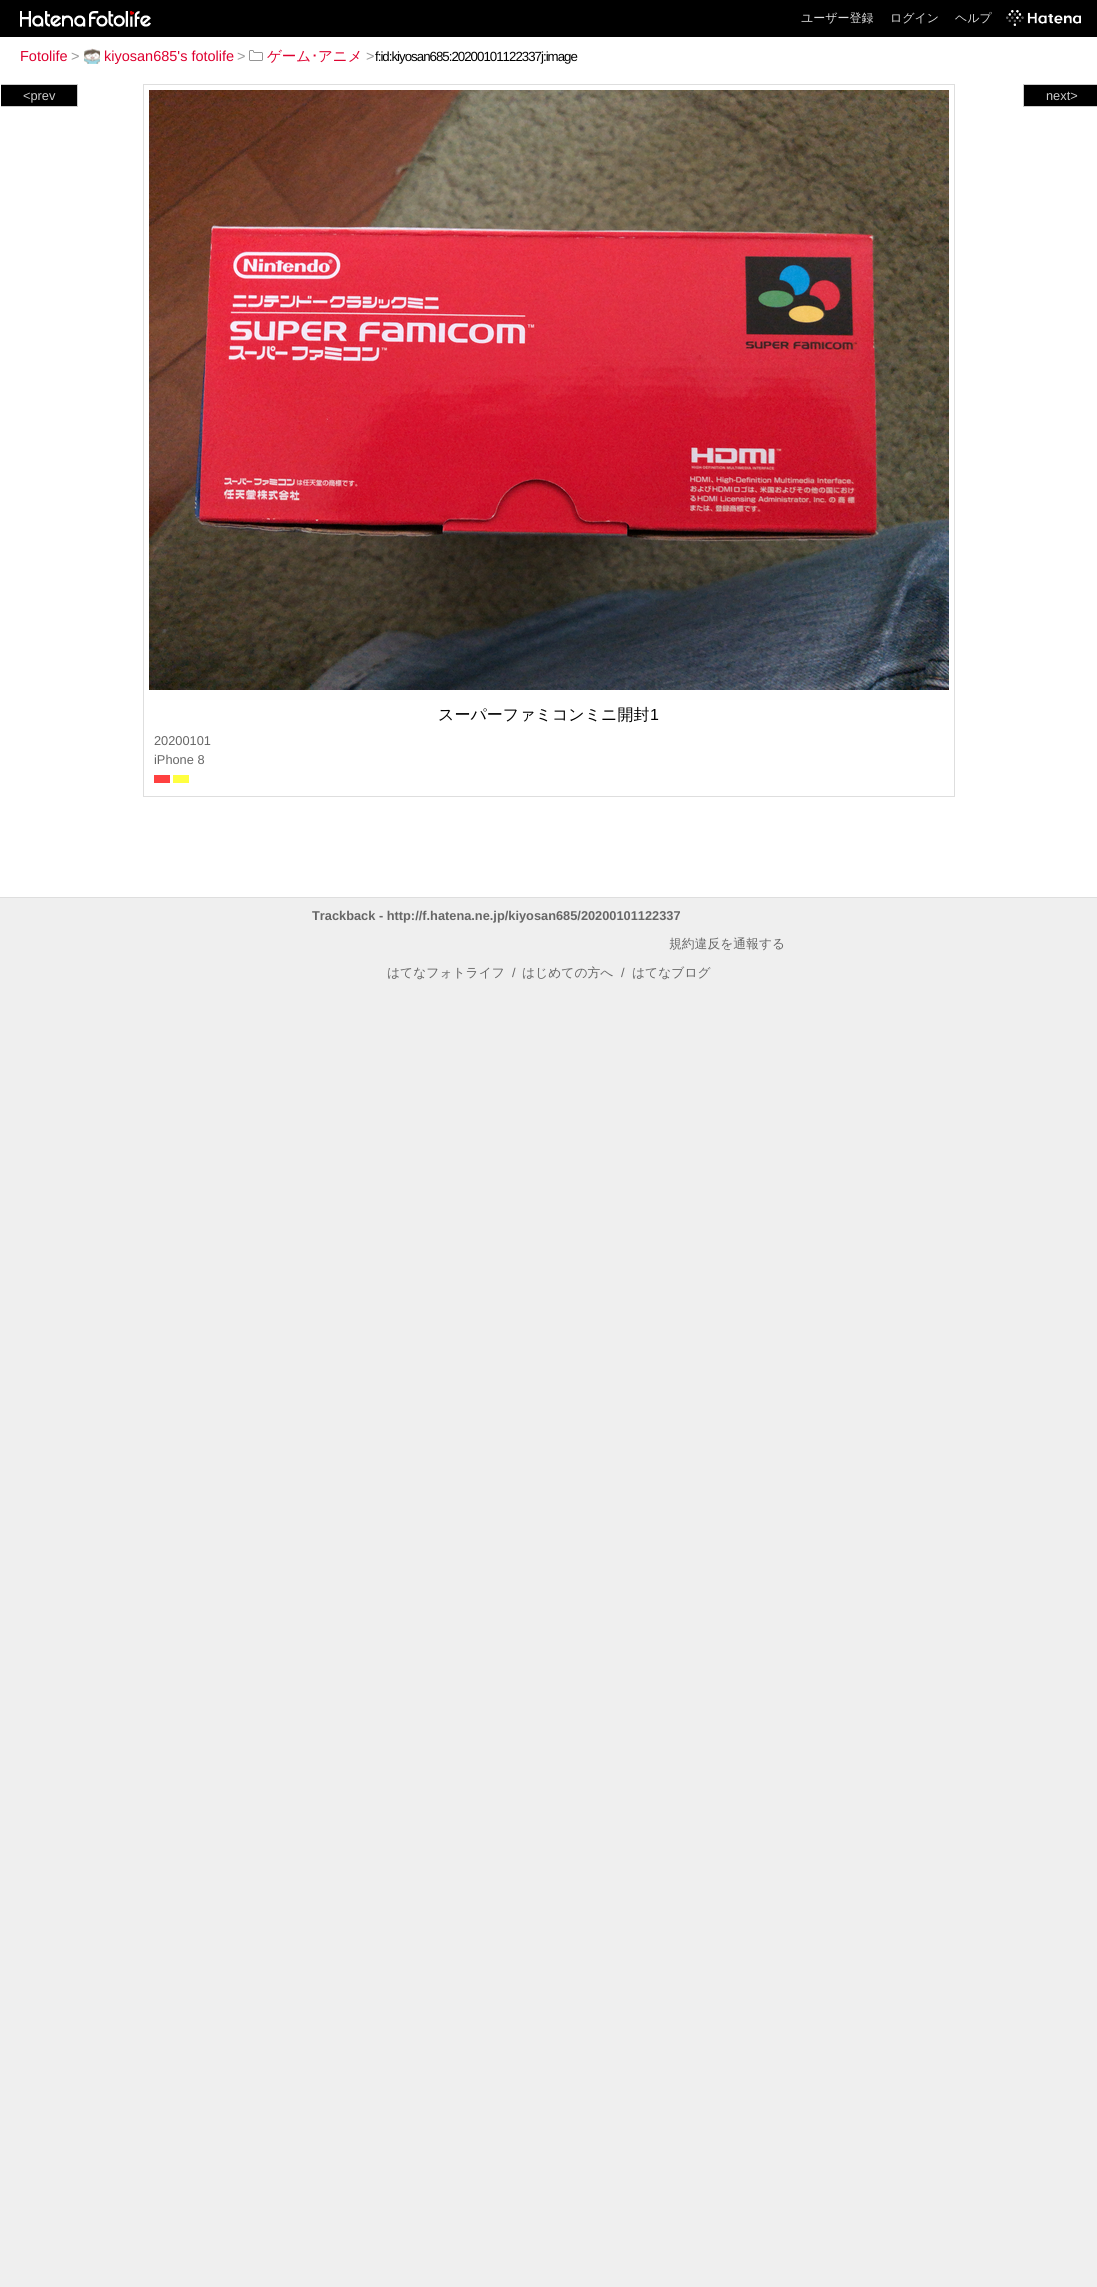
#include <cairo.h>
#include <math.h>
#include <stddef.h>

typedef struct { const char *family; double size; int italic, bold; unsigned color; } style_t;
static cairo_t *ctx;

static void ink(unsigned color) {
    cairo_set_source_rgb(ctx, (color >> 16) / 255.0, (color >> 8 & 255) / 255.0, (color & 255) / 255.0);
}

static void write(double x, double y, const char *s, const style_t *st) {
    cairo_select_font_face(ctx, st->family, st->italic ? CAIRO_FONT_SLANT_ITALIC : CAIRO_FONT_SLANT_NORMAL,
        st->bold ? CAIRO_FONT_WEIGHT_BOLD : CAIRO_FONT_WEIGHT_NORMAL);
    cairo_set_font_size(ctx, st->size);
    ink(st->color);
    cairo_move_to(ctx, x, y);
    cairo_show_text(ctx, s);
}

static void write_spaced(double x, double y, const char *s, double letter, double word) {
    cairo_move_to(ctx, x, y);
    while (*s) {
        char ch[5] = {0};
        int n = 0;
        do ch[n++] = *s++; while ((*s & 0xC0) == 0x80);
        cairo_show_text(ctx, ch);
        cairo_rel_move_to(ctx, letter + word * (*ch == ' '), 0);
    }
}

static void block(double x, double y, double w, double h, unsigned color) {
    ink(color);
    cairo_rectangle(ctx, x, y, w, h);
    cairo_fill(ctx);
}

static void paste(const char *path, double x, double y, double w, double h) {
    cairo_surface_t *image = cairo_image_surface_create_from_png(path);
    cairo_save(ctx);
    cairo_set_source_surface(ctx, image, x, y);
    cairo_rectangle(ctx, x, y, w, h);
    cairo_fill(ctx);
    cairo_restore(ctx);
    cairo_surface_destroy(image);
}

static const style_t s1 = {"WenQuanYi Zen Hei Medium", 12, 0, 0, 0xdddddd};
static const style_t s2 = {"Liberation Sans", 14.5, 0, 0, 0xde002f};
static const style_t s3 = {"Liberation Sans", 14.5, 0, 0, 0x999999};
static const style_t s4 = {"WenQuanYi Zen Hei Medium", 14.5, 0, 0, 0xde002f};
static const style_t s5 = {"IPAPGothic", 14.5, 0, 0, 0xde002f};
static const style_t s6 = {"Liberation Sans", 12.8, 0, 0, 0xcccccc};
static const style_t s7 = {"WenQuanYi Zen Hei Medium", 16, 0, 0, 0x000000};
static const style_t s8 = {"Liberation Sans", 16, 0, 0, 0x000000};
static const style_t s9 = {"Liberation Sans", 12.8, 0, 0, 0x666666};
static const style_t s10 = {"Liberation Sans", 12.8, 0, 1, 0x666666};
static const style_t s11 = {"WenQuanYi Zen Hei Medium", 12.8, 0, 0, 0x666666};

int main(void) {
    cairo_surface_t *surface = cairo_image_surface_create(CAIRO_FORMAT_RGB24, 1097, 2287);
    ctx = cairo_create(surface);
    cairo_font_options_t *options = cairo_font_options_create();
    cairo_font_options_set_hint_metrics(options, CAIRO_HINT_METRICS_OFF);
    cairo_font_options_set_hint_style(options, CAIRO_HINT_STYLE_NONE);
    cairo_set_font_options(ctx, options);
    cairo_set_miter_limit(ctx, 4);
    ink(0xefefef);
    cairo_paint(ctx);
    block(0, 0, 1097, 37, 0x000000);
    paste("pic1.png", 20, 11, 66, 16);
    paste("pic2.png", 89, 11, 62, 16);
    write(801, 22, "ユーザー登録", &s1);
    write(890, 22, "ログイン", &s1);
    write(955, 22, "ヘルプ", &s1);
    paste("pic3.png", 1006, 10, 75, 16);
    block(0, 37, 1097, 860, 0xffffff);
    write(20, 61, "Fotolife", &s2);
    write(71, 61, ">", &s3);
    paste("pic4.png", 84, 48, 16, 16);
    write(104, 61, "kiyosan685's fotolife", &s2);
    write(237, 61, ">", &s3);
    paste("pic5.png", 249, 50, 14, 11);
    write(267, 61, "ゲーム", &s4);
    write(311, 61, "･", &s5);
    write(318, 61, "アニメ", &s4);
    write(366, 61, ">", &s3);
    cairo_set_font_size(ctx, 13.3);
    ink(0x000000);
    write_spaced(375, 61, "f:id:kiyosan685:20200101122337j:image", -1, 0);
    block(0, 897, 1097, 1, 0xdedede);
    block(1, 85, 76, 21, 0x000000);
    block(1, 84, 77, 1, 0xcccccc);
    block(77, 84, 1, 23, 0xcccccc);
    block(1, 106, 77, 1, 0xcccccc);
    write(23, 100, "<prev", &s6);
    block(1024, 85, 73, 21, 0x000000);
    block(1023, 84, 74, 1, 0xcccccc);
    block(1023, 106, 74, 1, 0xcccccc);
    block(1023, 84, 1, 23, 0xcccccc);
    write(1046, 100, "next>", &s6);
    cairo_rectangle(ctx, 143.5, 84.5, 811, 712);
    ink(0xdedede);
    cairo_set_line_width(ctx, 1);
    cairo_stroke(ctx);
    paste("pic6.png", 149, 90, 800, 600);
    write(438, 720, "スーパーファミコンミニ開封", &s7);
    write(650, 720, "1", &s8);
    write(154, 745, "20200101", &s9);
    write(154, 764, "iPhone 8", &s9);
    block(154, 775, 16, 8, 0xff4040);
    block(173, 775, 16, 8, 0xffff40);
    write(312, 920, "Trackback - http://f.hatena.ne.jp/kiyosan685/20200101122337", &s10);
    write(669, 948, "規約違反を通報する", &s11);
    write(387, 977, "はてなフォトライフ", &s11);
    write(512, 977, "/", &s9);
    write(522, 977, "はじめての方へ", &s11);
    write(621, 977, "/", &s9);
    write(632, 977, "はてなブログ", &s11);
    cairo_surface_write_to_png(surface, "screenshot.png");
    cairo_font_options_destroy(options);
    cairo_destroy(ctx);
    cairo_surface_destroy(surface);
    return 0;
}
